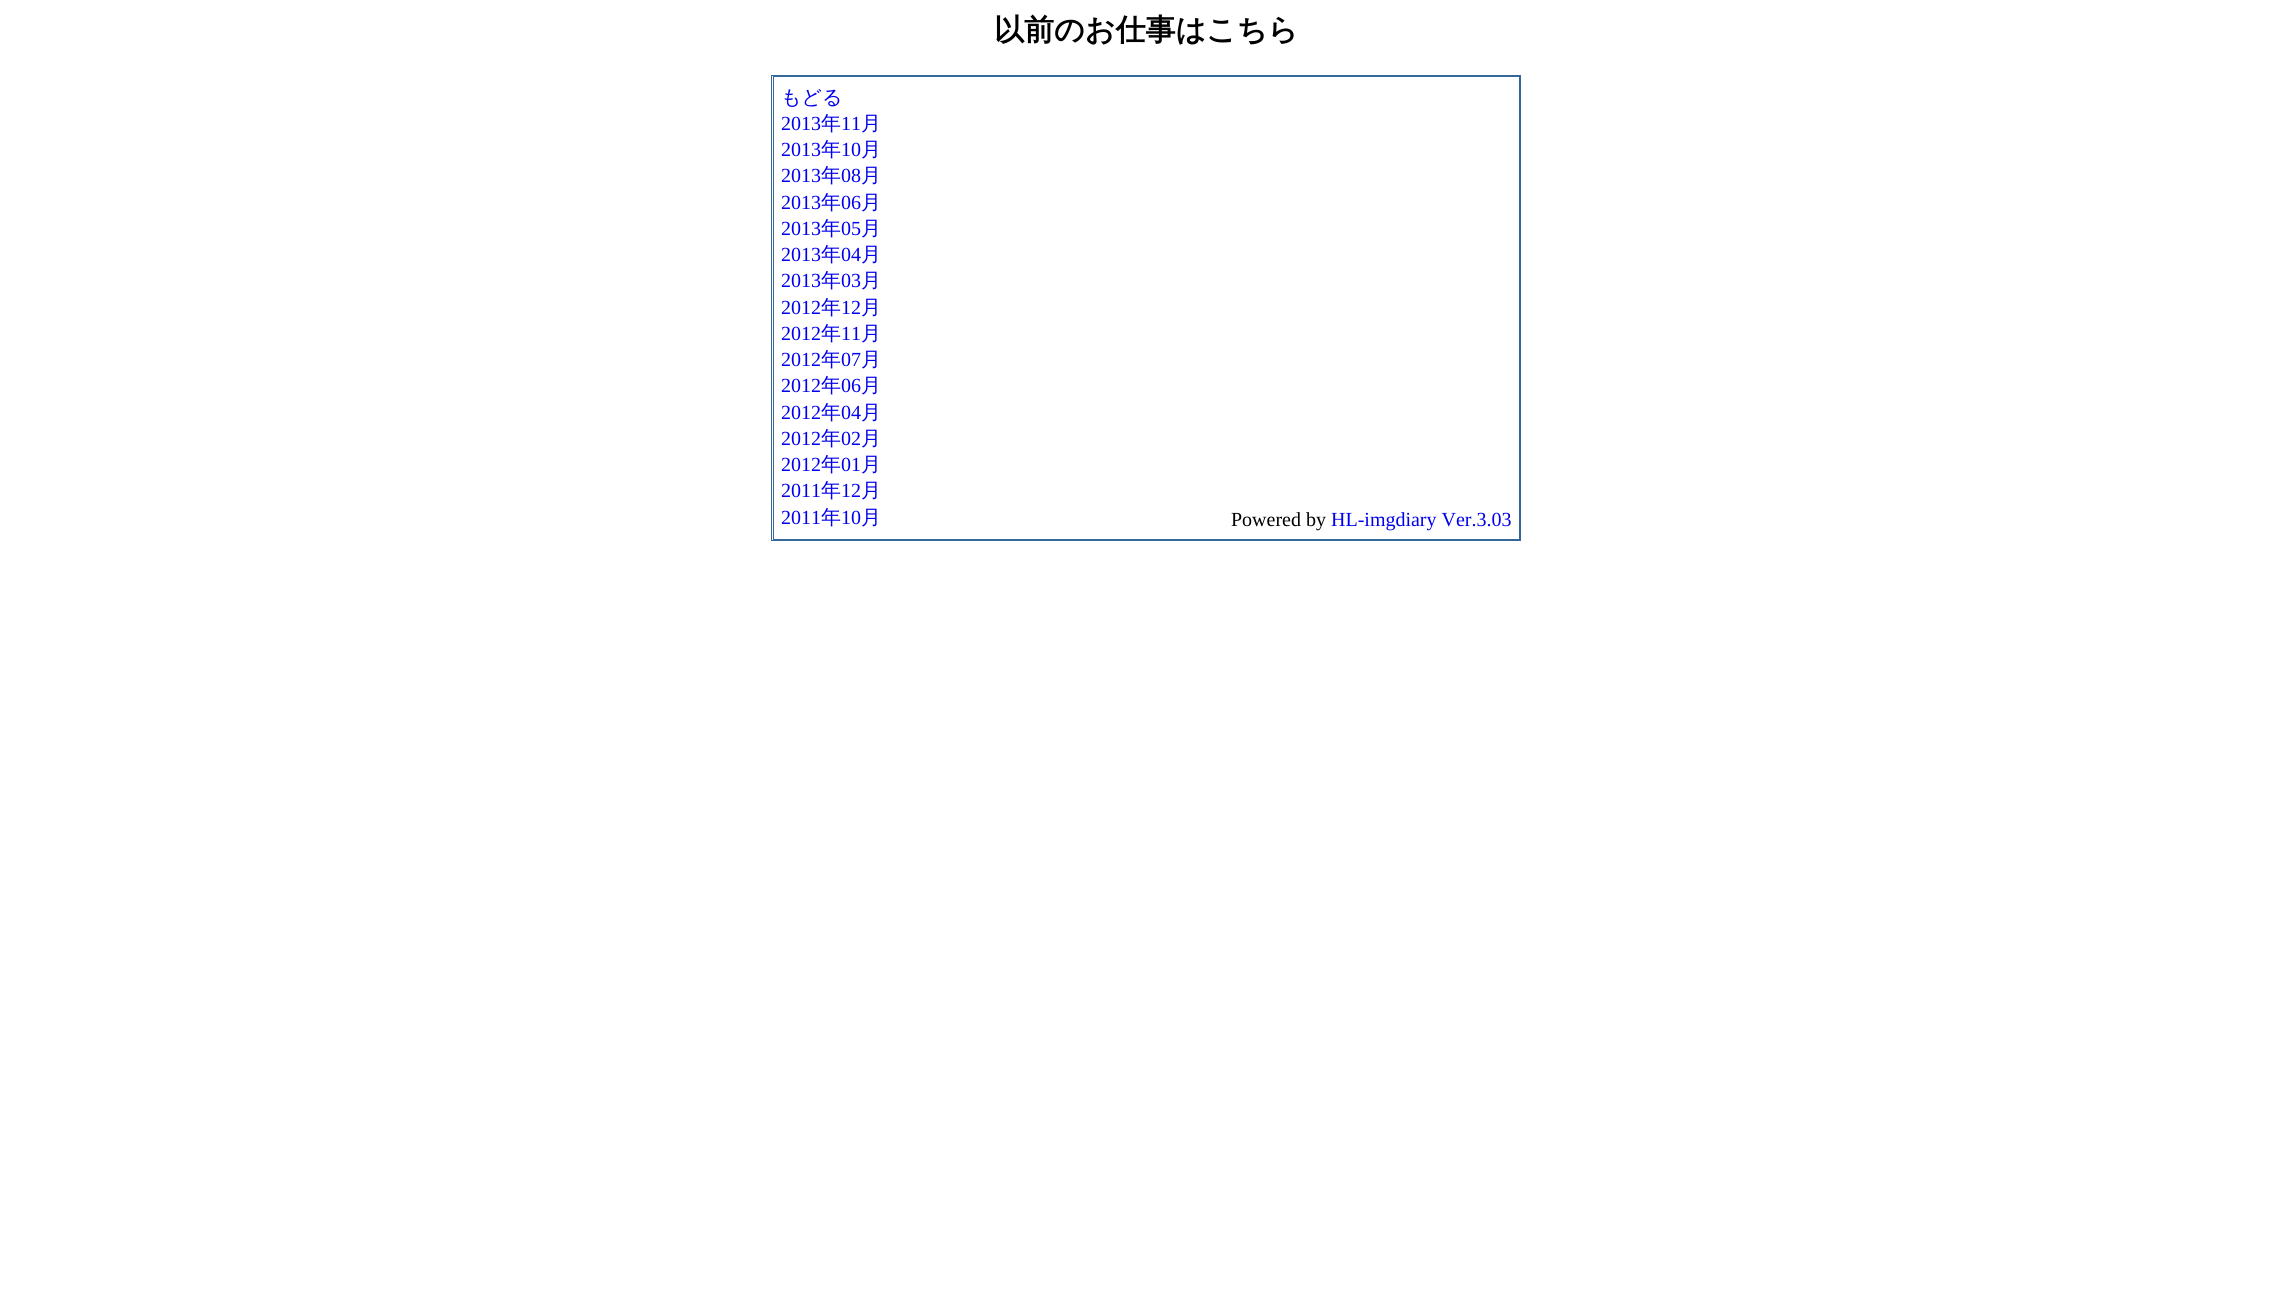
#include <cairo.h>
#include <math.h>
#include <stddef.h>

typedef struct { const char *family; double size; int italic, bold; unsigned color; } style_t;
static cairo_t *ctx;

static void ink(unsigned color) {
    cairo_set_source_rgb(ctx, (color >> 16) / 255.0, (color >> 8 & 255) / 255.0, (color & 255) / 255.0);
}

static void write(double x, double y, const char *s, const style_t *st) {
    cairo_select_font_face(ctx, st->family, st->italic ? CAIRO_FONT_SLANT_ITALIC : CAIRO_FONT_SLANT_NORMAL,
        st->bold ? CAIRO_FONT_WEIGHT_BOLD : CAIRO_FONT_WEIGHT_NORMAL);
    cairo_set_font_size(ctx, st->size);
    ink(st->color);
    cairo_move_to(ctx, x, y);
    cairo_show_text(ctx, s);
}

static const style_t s1 = {"WenQuanYi Zen Hei", 30, 0, 1, 0x000000};
static const style_t s2 = {"WenQuanYi Zen Hei Medium", 20, 0, 0, 0x0000ee};
static const style_t s3 = {"Liberation Serif", 20, 0, 0, 0x0000ee};
static const style_t s4 = {"Liberation Serif", 20, 0, 0, 0x000000};

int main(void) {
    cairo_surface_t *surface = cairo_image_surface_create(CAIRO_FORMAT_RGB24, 2292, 1306);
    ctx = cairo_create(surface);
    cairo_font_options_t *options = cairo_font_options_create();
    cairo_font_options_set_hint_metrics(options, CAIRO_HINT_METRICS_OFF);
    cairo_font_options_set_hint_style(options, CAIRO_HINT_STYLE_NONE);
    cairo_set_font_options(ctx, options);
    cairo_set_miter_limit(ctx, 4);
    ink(0xffffff);
    cairo_paint(ctx);
    write(994, 40, "以前のお仕事はこちら", &s1);
    cairo_rectangle(ctx, 771.5, 75.5, 749, 465);
    ink(0x336699);
    cairo_set_line_width(ctx, 1);
    cairo_stroke(ctx);
    cairo_rectangle(ctx, 773.5, 76.5, 746, 463);
    cairo_stroke(ctx);
    write(781, 104, "もどる", &s2);
    write(781, 130, "2013", &s3);
    write(821, 130, "年", &s2);
    write(841, 130, "11", &s3);
    write(861, 130, "月", &s2);
    write(781, 156, "2013", &s3);
    write(821, 156, "年", &s2);
    write(841, 156, "10", &s3);
    write(861, 156, "月", &s2);
    write(781, 182, "2013", &s3);
    write(821, 182, "年", &s2);
    write(841, 182, "08", &s3);
    write(861, 182, "月", &s2);
    write(781, 209, "2013", &s3);
    write(821, 209, "年", &s2);
    write(841, 209, "06", &s3);
    write(861, 209, "月", &s2);
    write(781, 235, "2013", &s3);
    write(821, 235, "年", &s2);
    write(841, 235, "05", &s3);
    write(861, 235, "月", &s2);
    write(781, 261, "2013", &s3);
    write(821, 261, "年", &s2);
    write(841, 261, "04", &s3);
    write(861, 261, "月", &s2);
    write(781, 287, "2013", &s3);
    write(821, 287, "年", &s2);
    write(841, 287, "03", &s3);
    write(861, 287, "月", &s2);
    write(781, 314, "2012", &s3);
    write(821, 314, "年", &s2);
    write(841, 314, "12", &s3);
    write(861, 314, "月", &s2);
    write(781, 340, "2012", &s3);
    write(821, 340, "年", &s2);
    write(841, 340, "11", &s3);
    write(861, 340, "月", &s2);
    write(781, 366, "2012", &s3);
    write(821, 366, "年", &s2);
    write(841, 366, "07", &s3);
    write(861, 366, "月", &s2);
    write(781, 392, "2012", &s3);
    write(821, 392, "年", &s2);
    write(841, 392, "06", &s3);
    write(861, 392, "月", &s2);
    write(781, 419, "2012", &s3);
    write(821, 419, "年", &s2);
    write(841, 419, "04", &s3);
    write(861, 419, "月", &s2);
    write(781, 445, "2012", &s3);
    write(821, 445, "年", &s2);
    write(841, 445, "02", &s3);
    write(861, 445, "月", &s2);
    write(781, 471, "2012", &s3);
    write(821, 471, "年", &s2);
    write(841, 471, "01", &s3);
    write(861, 471, "月", &s2);
    write(781, 497, "2011", &s3);
    write(821, 497, "年", &s2);
    write(841, 497, "12", &s3);
    write(861, 497, "月", &s2);
    write(781, 524, "2011", &s3);
    write(821, 524, "年", &s2);
    write(841, 524, "10", &s3);
    write(861, 524, "月", &s2);
    write(1231, 526, "Powered by", &s4);
    write(1331, 526, "HL-imgdiary Ver.3.03", &s3);
    cairo_surface_write_to_png(surface, "screenshot.png");
    cairo_font_options_destroy(options);
    cairo_destroy(ctx);
    cairo_surface_destroy(surface);
    return 0;
}
